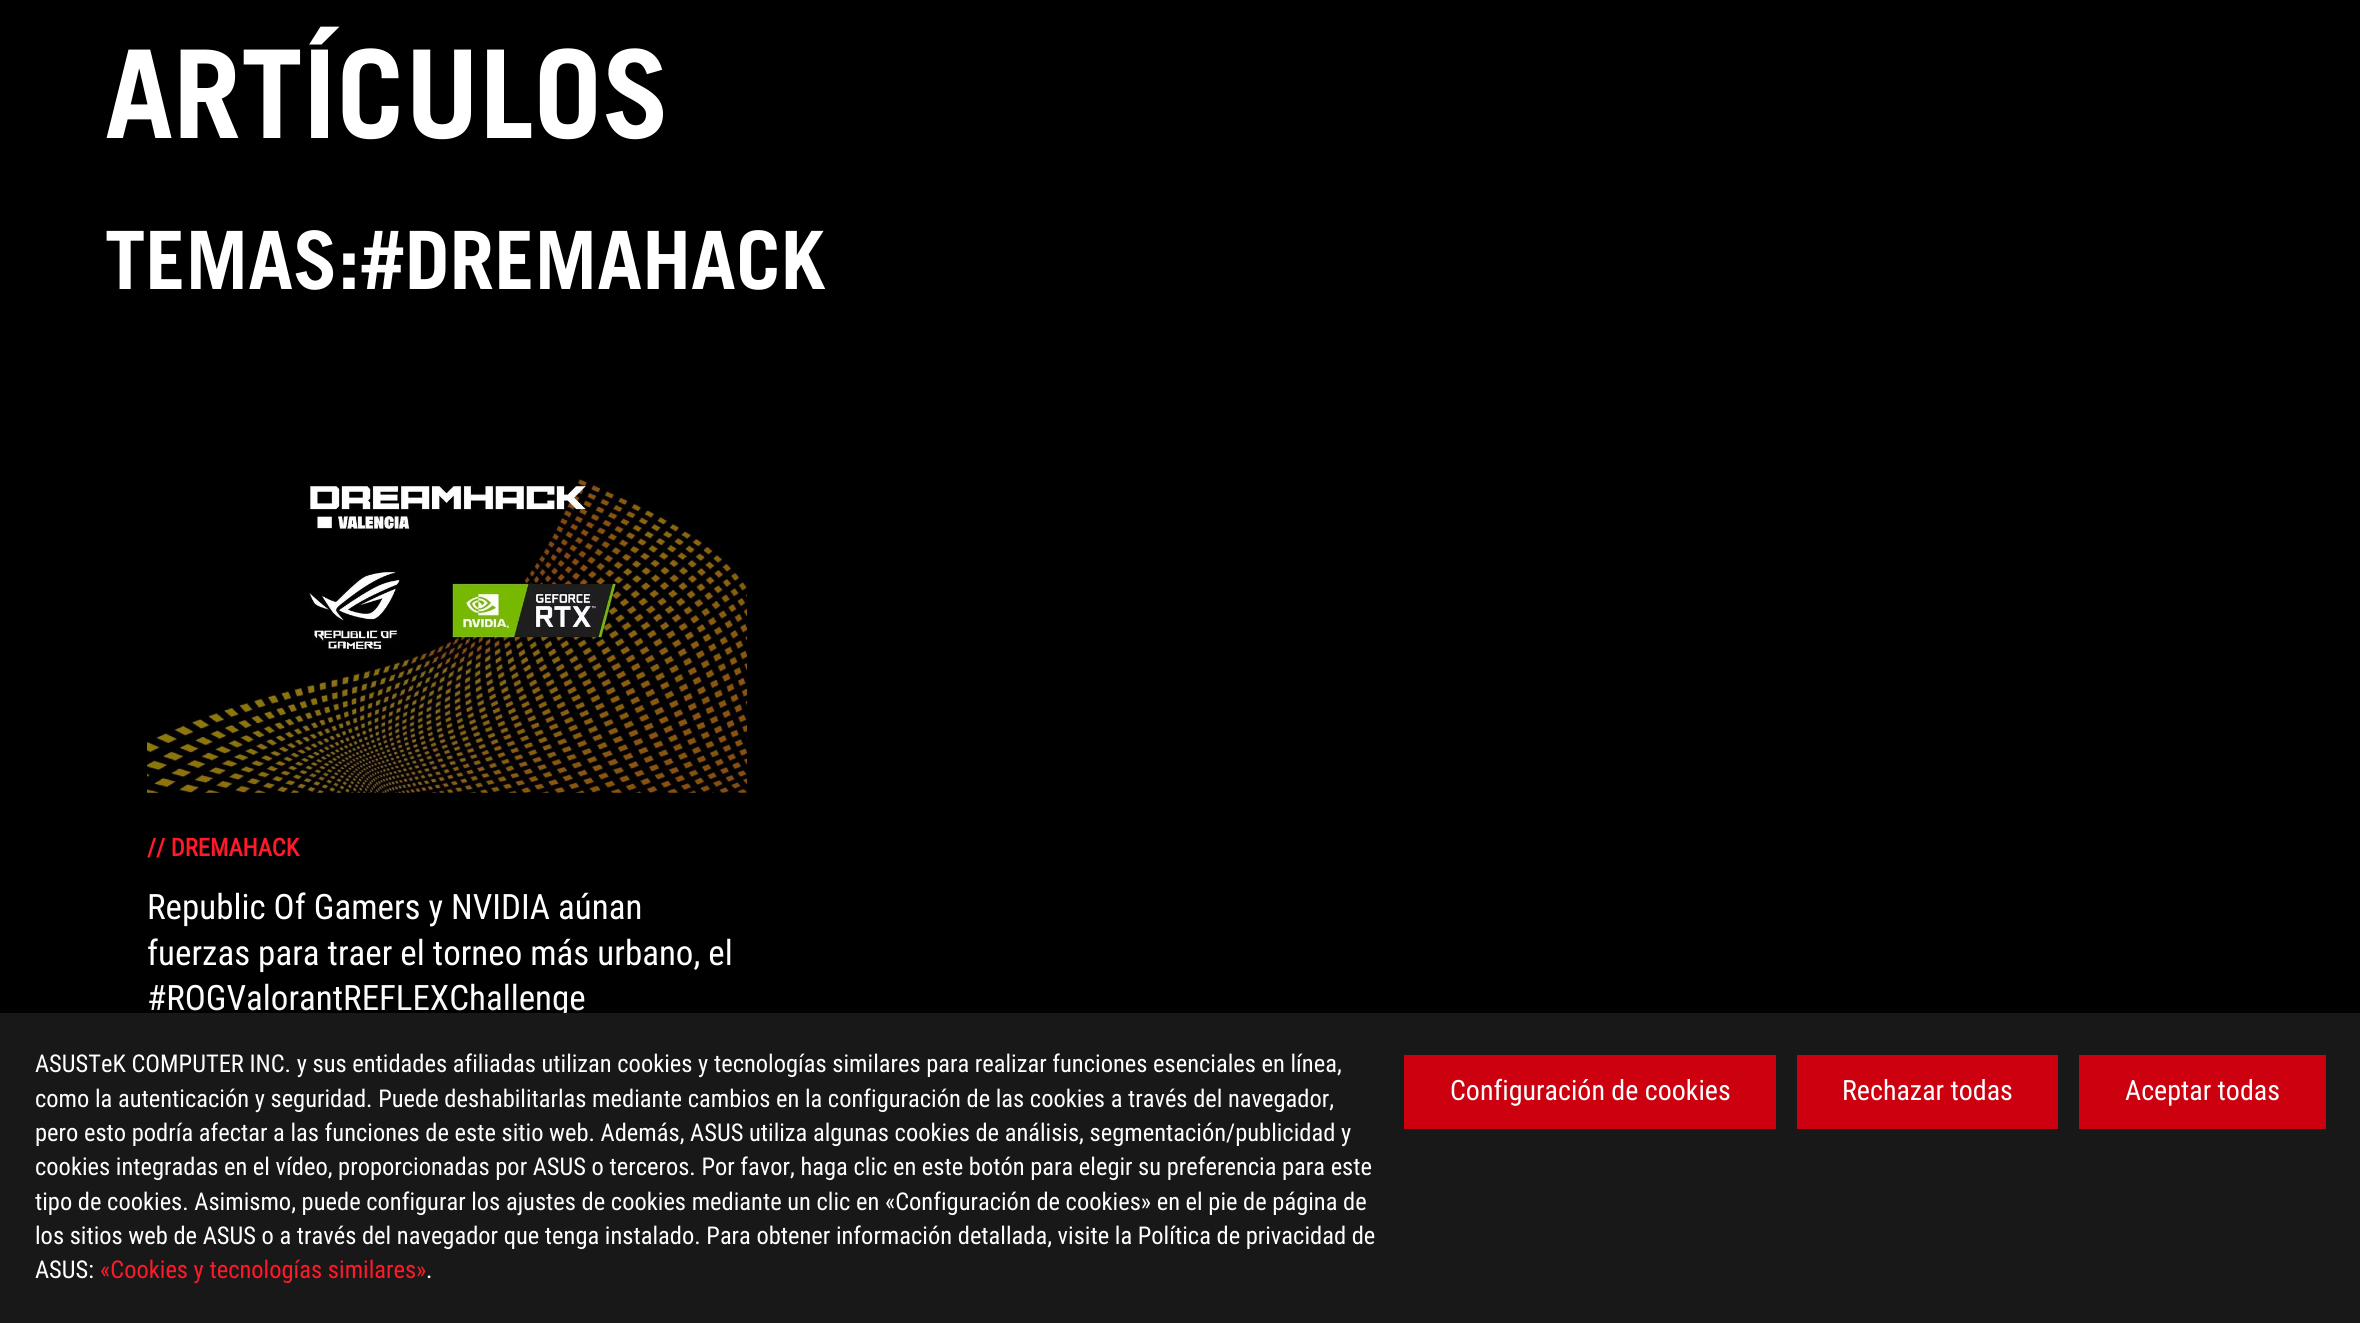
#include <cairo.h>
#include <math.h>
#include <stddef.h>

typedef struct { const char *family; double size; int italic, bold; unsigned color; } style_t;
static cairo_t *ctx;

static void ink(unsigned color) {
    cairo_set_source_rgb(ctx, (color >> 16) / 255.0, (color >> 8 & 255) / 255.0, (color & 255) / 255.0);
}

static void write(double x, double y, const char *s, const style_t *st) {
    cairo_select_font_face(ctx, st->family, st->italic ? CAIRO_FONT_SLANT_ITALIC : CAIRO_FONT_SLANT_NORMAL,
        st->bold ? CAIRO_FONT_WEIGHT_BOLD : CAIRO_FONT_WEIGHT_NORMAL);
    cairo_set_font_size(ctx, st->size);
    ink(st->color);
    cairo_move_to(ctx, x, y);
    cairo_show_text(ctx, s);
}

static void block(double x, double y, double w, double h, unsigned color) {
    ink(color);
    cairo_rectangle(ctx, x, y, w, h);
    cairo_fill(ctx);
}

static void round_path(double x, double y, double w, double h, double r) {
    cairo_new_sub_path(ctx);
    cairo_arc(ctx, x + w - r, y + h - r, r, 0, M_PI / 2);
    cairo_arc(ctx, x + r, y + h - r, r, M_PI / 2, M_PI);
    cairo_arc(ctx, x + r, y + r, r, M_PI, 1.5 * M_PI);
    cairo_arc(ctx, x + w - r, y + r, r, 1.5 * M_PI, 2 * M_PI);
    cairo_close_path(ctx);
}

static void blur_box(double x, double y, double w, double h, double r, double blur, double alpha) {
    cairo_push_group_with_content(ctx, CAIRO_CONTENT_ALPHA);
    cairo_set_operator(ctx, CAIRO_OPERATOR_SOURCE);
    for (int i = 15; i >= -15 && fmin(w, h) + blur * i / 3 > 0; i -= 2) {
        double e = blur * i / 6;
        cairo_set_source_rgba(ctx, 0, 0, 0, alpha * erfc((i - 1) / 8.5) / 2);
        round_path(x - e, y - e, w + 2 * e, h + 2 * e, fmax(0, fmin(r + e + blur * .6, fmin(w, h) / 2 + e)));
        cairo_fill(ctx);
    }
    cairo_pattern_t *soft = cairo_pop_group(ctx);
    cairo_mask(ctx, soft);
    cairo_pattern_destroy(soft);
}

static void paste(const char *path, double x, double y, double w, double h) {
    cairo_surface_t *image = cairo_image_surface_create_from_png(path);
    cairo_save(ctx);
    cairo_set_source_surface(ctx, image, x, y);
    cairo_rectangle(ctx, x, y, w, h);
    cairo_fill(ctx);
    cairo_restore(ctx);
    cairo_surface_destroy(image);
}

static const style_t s1 = {"Trade Gothic", 122.5, 0, 1, 0xffffff};
static const style_t s2 = {"Trade Gothic", 80.5, 0, 1, 0xffffff};
static const style_t s3 = {"Roboto Condensed", 24.5, 0, 1, 0xff1929};
static const style_t s4 = {"Roboto Condensed", 35, 0, 0, 0xffffff};
static const style_t s5 = {"Roboto Condensed", 24.5, 0, 0, 0xffffff};
static const style_t s6 = {"Roboto Condensed", 24.5, 0, 0, 0xff1929};
static const style_t s7 = {"Roboto Condensed", 28, 0, 0, 0xffffff};

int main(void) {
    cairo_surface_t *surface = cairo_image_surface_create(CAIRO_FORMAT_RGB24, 2360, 1323);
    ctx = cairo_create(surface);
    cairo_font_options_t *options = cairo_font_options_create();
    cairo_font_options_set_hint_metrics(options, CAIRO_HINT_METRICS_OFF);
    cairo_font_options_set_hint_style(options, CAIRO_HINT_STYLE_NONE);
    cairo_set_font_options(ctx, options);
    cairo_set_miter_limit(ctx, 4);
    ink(0x000000);
    cairo_paint(ctx);
    write(105, 138, "ARTÍCULOS", &s1);
    write(105, 289, "TEMAS:#DREMAHACK", &s2);
    paste("pic1.png", 147, 479, 601, 314);
    write(147, 856, "// DREMAHACK", &s3);
    write(147, 919, "Republic Of Gamers y NVIDIA aúnan", &s4);
    write(147, 965, "fuerzas para traer el torneo más urbano, el", &s4);
    write(147, 1010, "#ROGValorantREFLEXChallenge", &s4);
    ink(0x000000);
    blur_box(2, 1010, 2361, 310, 0, 10.5, 0.1);
    block(0, 1013, 2360, 310, 0x181818);
    write(35, 1072, "ASUSTeK COMPUTER INC. y sus entidades afiliadas utilizan cookies y tecnologías similares para realizar funciones esenciales en línea,", &s5);
    write(35, 1107, "como la autenticación y seguridad. Puede deshabilitarlas mediante cambios en la configuración de las cookies a través del navegador,", &s5);
    write(35, 1141, "pero esto podría afectar a las funciones de este sitio web. Además, ASUS utiliza algunas cookies de análisis, segmentación/publicidad y", &s5);
    write(35, 1175, "cookies integradas en el vídeo, proporcionadas por ASUS o terceros. Por favor, haga clic en este botón para elegir su preferencia para este", &s5);
    write(35, 1210, "tipo de cookies. Asimismo, puede configurar los ajustes de cookies mediante un clic en «Configuración de cookies» en el pie de página de", &s5);
    write(35, 1244, "los sitios web de ASUS o a través del navegador que tenga instalado. Para obtener información detallada, visite la Política de privacidad de", &s5);
    write(35, 1278, "ASUS:", &s5);
    write(100, 1278, "«Cookies y tecnologías similares»", &s6);
    write(426, 1278, ".", &s5);
    block(1404, 1055, 372, 74, 0xcc000e);
    write(1450, 1100, "Configuración de cookies", &s7);
    block(1797, 1055, 261, 74, 0xcc000e);
    write(1842, 1100, "Rechazar todas", &s7);
    block(2079, 1055, 247, 74, 0xcc000e);
    write(2125, 1100, "Aceptar todas", &s7);
    cairo_surface_write_to_png(surface, "screenshot.png");
    cairo_font_options_destroy(options);
    cairo_destroy(ctx);
    cairo_surface_destroy(surface);
    return 0;
}
